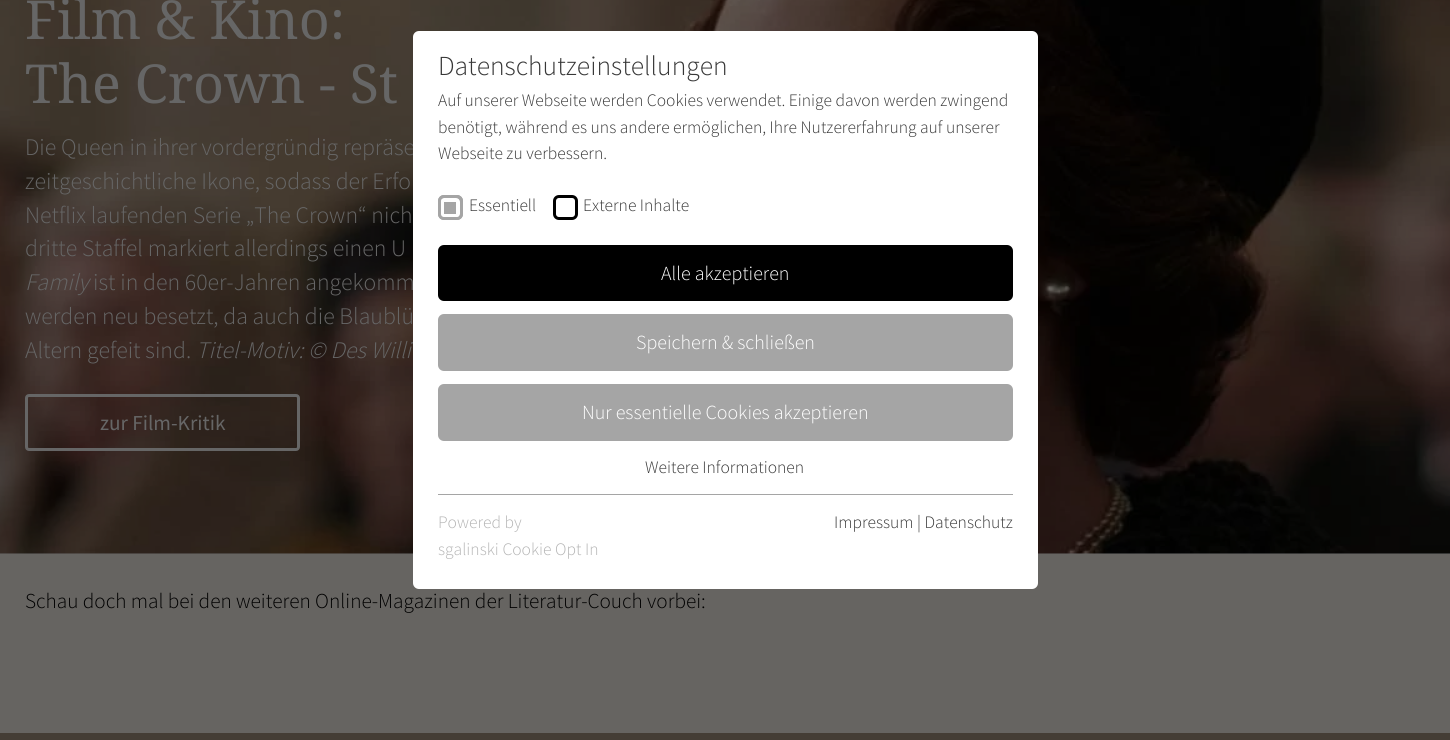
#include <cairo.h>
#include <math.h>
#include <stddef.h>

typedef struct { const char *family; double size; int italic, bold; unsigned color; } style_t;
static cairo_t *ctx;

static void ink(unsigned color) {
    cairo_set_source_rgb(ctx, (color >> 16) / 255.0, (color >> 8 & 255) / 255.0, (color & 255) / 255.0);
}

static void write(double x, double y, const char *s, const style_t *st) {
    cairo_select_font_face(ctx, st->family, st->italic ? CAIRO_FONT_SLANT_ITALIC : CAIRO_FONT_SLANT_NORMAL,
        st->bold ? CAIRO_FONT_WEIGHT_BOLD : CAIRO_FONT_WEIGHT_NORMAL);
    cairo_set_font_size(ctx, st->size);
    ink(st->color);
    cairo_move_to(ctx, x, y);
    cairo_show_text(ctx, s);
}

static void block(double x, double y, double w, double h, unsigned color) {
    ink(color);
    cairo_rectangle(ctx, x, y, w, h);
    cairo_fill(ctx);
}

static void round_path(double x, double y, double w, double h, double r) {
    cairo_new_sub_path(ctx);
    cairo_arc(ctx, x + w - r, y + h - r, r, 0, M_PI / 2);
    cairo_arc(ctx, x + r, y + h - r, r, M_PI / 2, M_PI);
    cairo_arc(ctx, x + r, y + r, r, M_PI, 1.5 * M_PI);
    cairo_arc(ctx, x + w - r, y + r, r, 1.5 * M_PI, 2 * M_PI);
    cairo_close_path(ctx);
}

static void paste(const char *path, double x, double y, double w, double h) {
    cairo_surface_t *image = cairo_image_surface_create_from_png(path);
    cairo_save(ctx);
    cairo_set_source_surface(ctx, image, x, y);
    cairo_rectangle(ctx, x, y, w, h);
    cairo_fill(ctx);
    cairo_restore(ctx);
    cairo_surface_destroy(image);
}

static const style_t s1 = {"Noto Serif", 53.75, 0, 0, 0x666666};
static const style_t s2 = {"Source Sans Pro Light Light", 23.75, 0, 0, 0x666666};
static const style_t s3 = {"Source Sans Pro Light Light", 23.75, 1, 0, 0x666666};
static const style_t s4 = {"Source Sans Pro", 21.25, 0, 0, 0x666666};
static const style_t s5 = {"Source Sans Pro Light Light", 21.25, 0, 0, 0x000000};
static const style_t s6 = {"Source Sans Pro Light Light", 27.5, 0, 0, 0x373737};
static const style_t s7 = {"Source Sans Pro Light Light", 17.5, 0, 0, 0x373737};
static const style_t s8 = {"Source Sans Pro Light Light", 20, 0, 0, 0xffffff};
static const style_t s9 = {"Source Sans Pro Light Light", 17.5, 0, 0, 0xb4b4b4};

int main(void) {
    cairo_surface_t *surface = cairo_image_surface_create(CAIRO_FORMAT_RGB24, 1450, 740);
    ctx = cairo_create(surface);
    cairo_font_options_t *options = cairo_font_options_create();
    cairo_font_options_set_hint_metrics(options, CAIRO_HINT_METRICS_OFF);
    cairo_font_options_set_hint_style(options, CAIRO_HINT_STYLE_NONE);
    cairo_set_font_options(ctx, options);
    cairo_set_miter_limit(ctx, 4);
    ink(0x666666);
    cairo_paint(ctx);
    paste("pic1.png", 0, 0, 1450, 554);
    write(25, 39, "Film & Kino:", &s1);
    write(25, 103, "The Crown - St", &s1);
    write(25, 155, "Die Queen in ihrer vordergründig repräse", &s2);
    write(25, 189, "zeitgeschichtliche Ikone, sodass der Erfo", &s2);
    write(25, 223, "Netflix laufenden Serie „The Crown“ nich", &s2);
    write(25, 256, "dritte Staffel markiert allerdings einen U", &s2);
    write(25, 290, "Family", &s3);
    write(93, 290, "ist in den 60er-Jahren angekomm", &s2);
    write(25, 324, "werden neu besetzt, da auch die Blaublü", &s2);
    write(25, 358, "Altern gefeit sind.", &s2);
    write(196, 358, "Titel-Motiv: © Des Willi", &s3);
    round_path(26.5, 395.5, 272, 54, 2.5);
    cairo_set_line_width(ctx, 3);
    cairo_stroke(ctx);
    write(100, 430, "zur Film-Kritik", &s4);
    block(0, 554, 1450, 179, 0x666461);
    write(25, 608, "Schau doch mal bei den weiteren Online-Magazinen der Literatur-Couch vorbei:", &s5);
    block(0, 733, 1450, 7, 0x443d35);
    ink(0xffffff);
    round_path(413, 31, 625, 558, 6);
    cairo_fill(ctx);
    write(438, 75, "Datenschutzeinstellungen", &s6);
    write(438, 106, "Auf unserer Webseite werden Cookies verwendet. Einige davon werden zwingend", &s7);
    write(438, 133, "benötigt, während es uns andere ermöglichen, Ihre Nutzererfahrung auf unserer", &s7);
    write(438, 159, "Webseite zu verbessern.", &s7);
    ink(0xa5a5a5);
    round_path(438, 195, 25, 25, 6);
    cairo_fill(ctx);
    round_path(442, 200, 16, 16, 2);
    ink(0xffffff);
    cairo_set_line_width(ctx, 4);
    cairo_stroke(ctx);
    round_path(439.5, 196.5, 22, 22, 4.5);
    ink(0xa5a5a5);
    cairo_set_line_width(ctx, 3);
    cairo_stroke(ctx);
    write(469, 211, "Essentiell", &s7);
    round_path(554.5, 196.5, 22, 22, 4.5);
    ink(0x000000);
    cairo_stroke(ctx);
    write(583, 211, "Externe Inhalte", &s7);
    ink(0x000000);
    round_path(438, 245, 575, 56, 6);
    cairo_fill(ctx);
    write(661, 280, "Alle akzeptieren", &s8);
    ink(0xa5a5a5);
    round_path(438, 314, 575, 57, 6);
    cairo_fill(ctx);
    write(636, 349, "Speichern & schließen", &s8);
    ink(0xa5a5a5);
    round_path(438, 384, 575, 57, 6);
    cairo_fill(ctx);
    write(582, 419, "Nur essentielle Cookies akzeptieren", &s8);
    write(645, 473, "Weitere Informationen", &s7);
    block(438, 494, 575, 1, 0xa5a5a5);
    write(438, 528, "Powered by", &s9);
    write(438, 555, "sgalinski Cookie Opt In", &s9);
    write(834, 528, "Impressum | Datenschutz", &s7);
    cairo_surface_write_to_png(surface, "screenshot.png");
    cairo_font_options_destroy(options);
    cairo_destroy(ctx);
    cairo_surface_destroy(surface);
    return 0;
}
